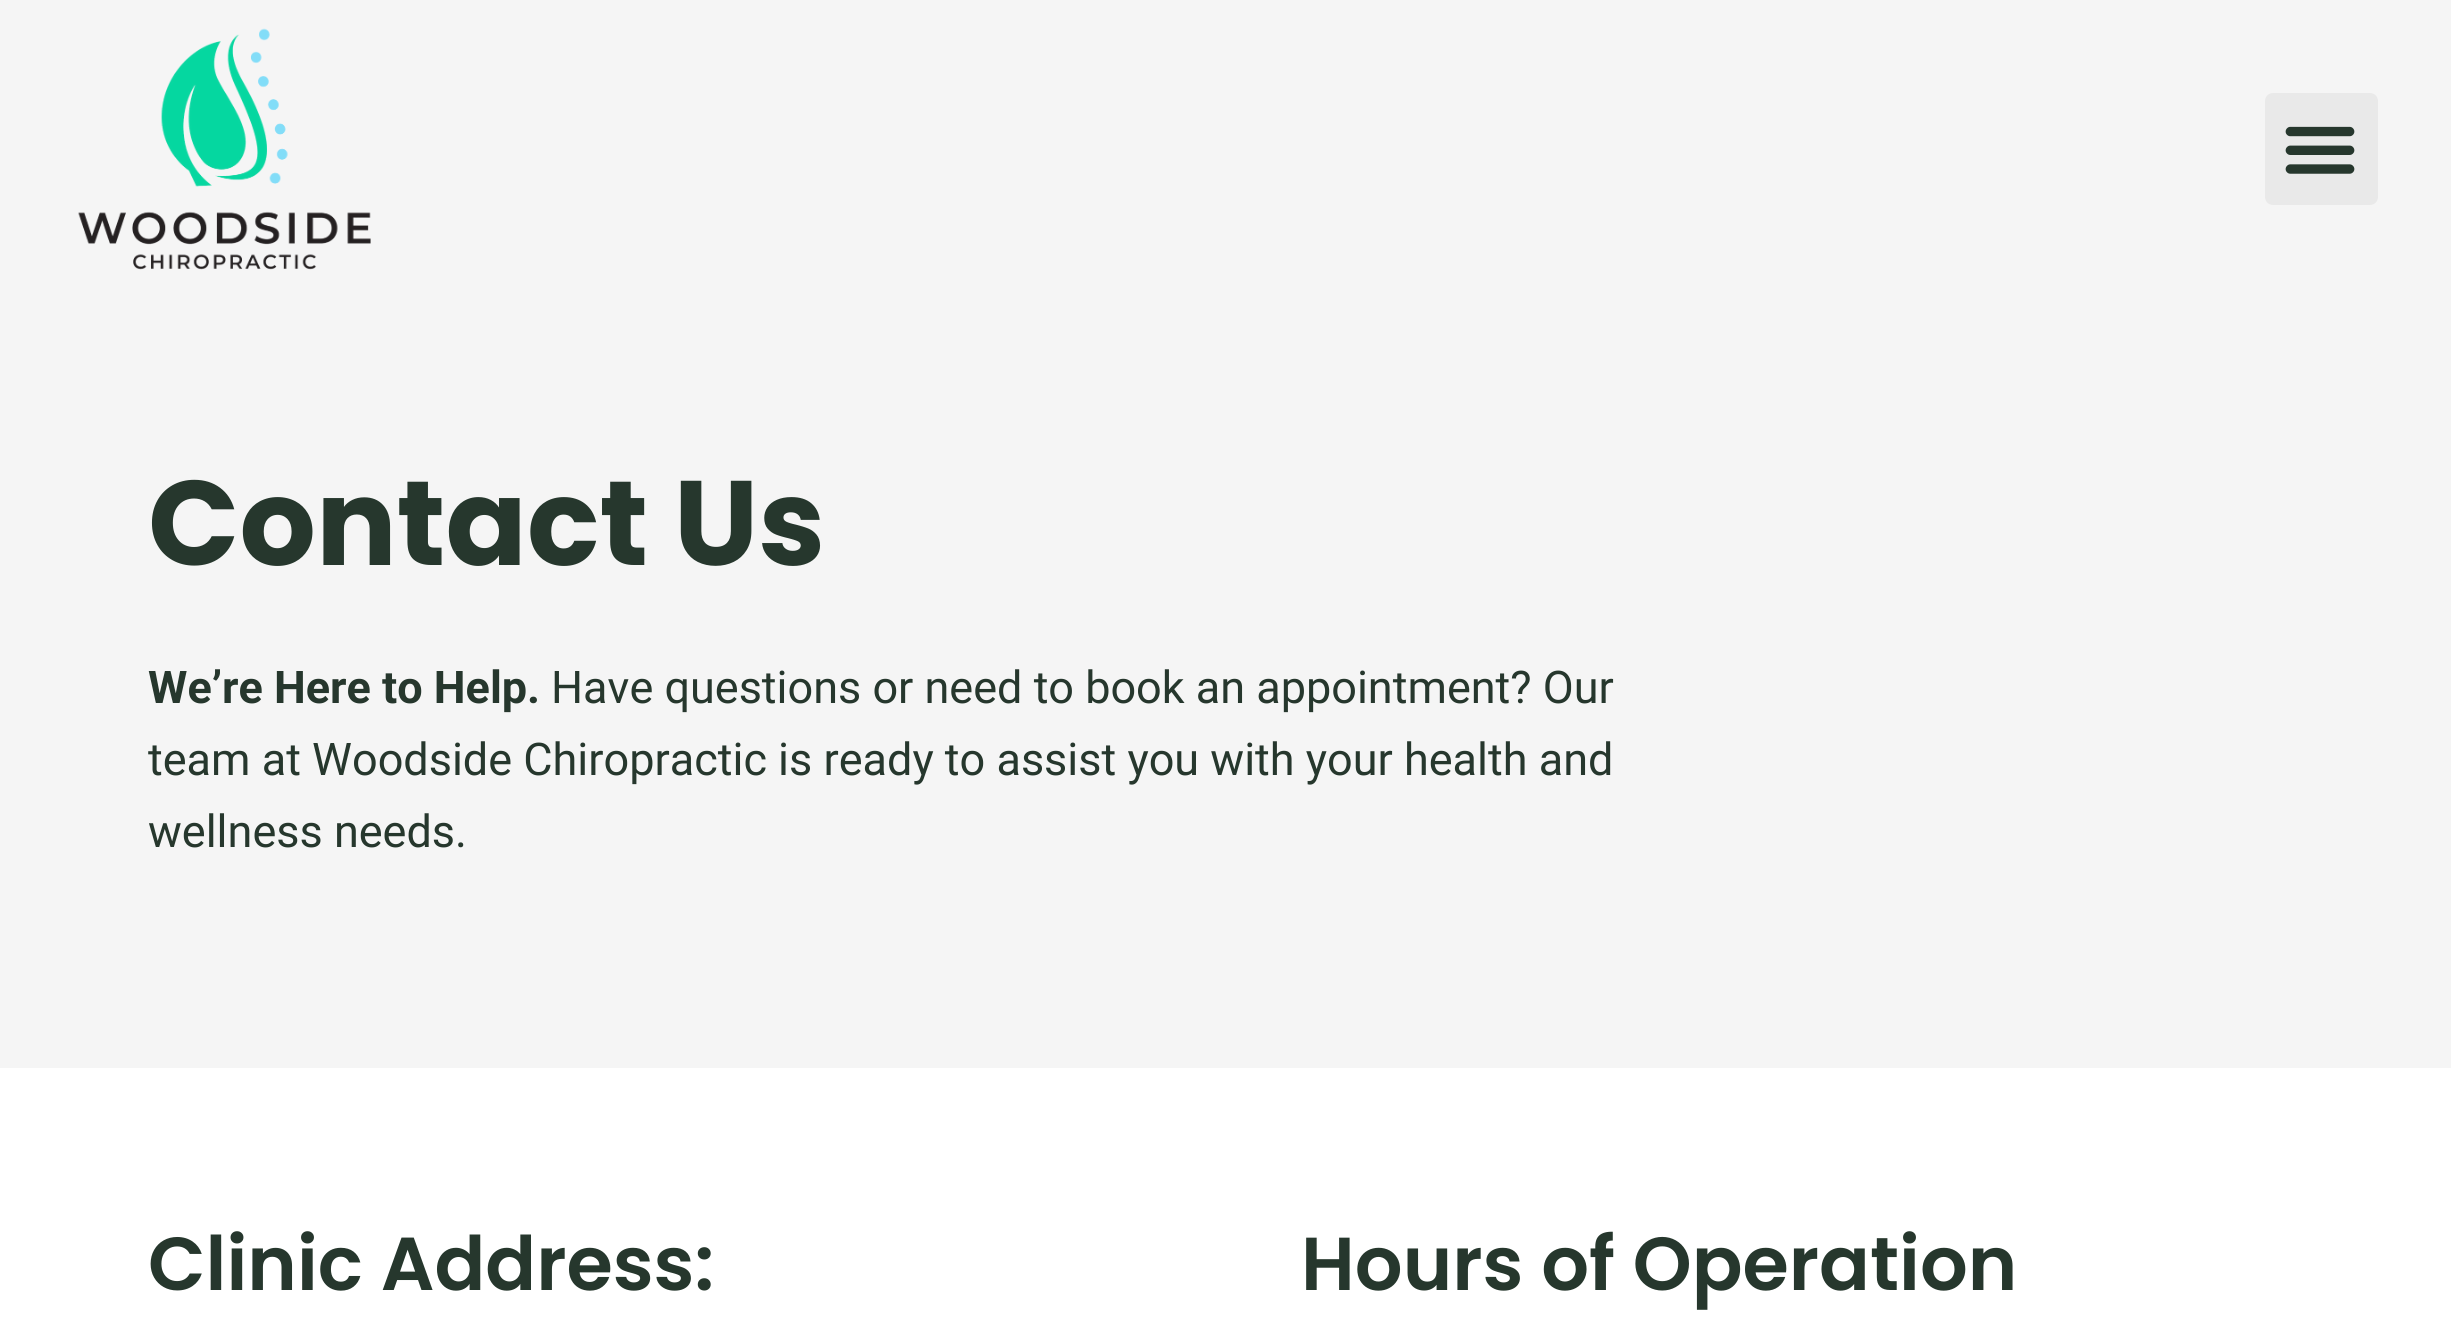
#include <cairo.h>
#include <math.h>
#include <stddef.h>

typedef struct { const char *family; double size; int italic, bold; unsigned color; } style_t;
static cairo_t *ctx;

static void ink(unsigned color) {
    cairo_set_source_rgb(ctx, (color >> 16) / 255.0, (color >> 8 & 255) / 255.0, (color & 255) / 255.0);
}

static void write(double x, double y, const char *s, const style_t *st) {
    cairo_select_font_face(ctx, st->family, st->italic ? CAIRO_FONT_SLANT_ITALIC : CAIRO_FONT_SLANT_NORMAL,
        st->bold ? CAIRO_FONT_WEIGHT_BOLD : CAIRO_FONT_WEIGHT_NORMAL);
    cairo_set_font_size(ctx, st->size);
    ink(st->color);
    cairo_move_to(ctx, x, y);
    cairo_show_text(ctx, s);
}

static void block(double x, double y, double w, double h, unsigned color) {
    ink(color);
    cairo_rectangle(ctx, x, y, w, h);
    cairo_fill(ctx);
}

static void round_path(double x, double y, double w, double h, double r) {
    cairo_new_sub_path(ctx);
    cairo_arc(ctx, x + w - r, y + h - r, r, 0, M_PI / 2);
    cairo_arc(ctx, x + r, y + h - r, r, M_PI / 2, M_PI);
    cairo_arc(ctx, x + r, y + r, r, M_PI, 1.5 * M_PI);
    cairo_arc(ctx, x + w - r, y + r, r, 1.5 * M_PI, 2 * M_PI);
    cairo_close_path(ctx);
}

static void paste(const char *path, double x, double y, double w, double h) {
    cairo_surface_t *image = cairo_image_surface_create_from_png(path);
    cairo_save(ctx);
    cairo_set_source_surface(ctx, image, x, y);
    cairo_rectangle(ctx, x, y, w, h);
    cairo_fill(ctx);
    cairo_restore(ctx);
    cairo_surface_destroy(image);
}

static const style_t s1 = {"Poppins", 120, 0, 1, 0x26372d};
static const style_t s2 = {"Roboto", 45, 0, 1, 0x26372d};
static const style_t s3 = {"Roboto", 45, 0, 0, 0x26372d};
static const style_t s4 = {"Poppins SemiBold", 75, 0, 0, 0x26372d};

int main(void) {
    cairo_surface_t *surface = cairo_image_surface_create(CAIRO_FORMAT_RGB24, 2451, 1325);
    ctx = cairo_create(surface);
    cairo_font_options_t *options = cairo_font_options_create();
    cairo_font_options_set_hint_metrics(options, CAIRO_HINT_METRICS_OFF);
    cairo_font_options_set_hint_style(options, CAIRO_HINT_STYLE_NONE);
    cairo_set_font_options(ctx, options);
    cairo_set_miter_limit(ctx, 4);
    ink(0xffffff);
    cairo_paint(ctx);
    block(0, 0, 2451, 1068, 0xf5f5f5);
    paste("pic1.png", 78, 28, 293, 242);
    ink(0xe9e9e9);
    round_path(2265, 93, 113, 112, 8);
    cairo_fill(ctx);
    paste("pic2.png", 2285, 126, 70, 48);
    write(148, 565, "Contact Us", &s1);
    write(148, 703, "We’re Here to Help.", &s2);
    write(551, 703, "Have questions or need to book an appointment? Our", &s3);
    write(148, 775, "team at Woodside Chiropractic is ready to assist you with your health and", &s3);
    write(148, 847, "wellness needs.", &s3);
    write(148, 1290, "Clinic Address:", &s4);
    write(1301, 1290, "Hours of Operation", &s4);
    cairo_surface_write_to_png(surface, "screenshot.png");
    cairo_font_options_destroy(options);
    cairo_destroy(ctx);
    cairo_surface_destroy(surface);
    return 0;
}
